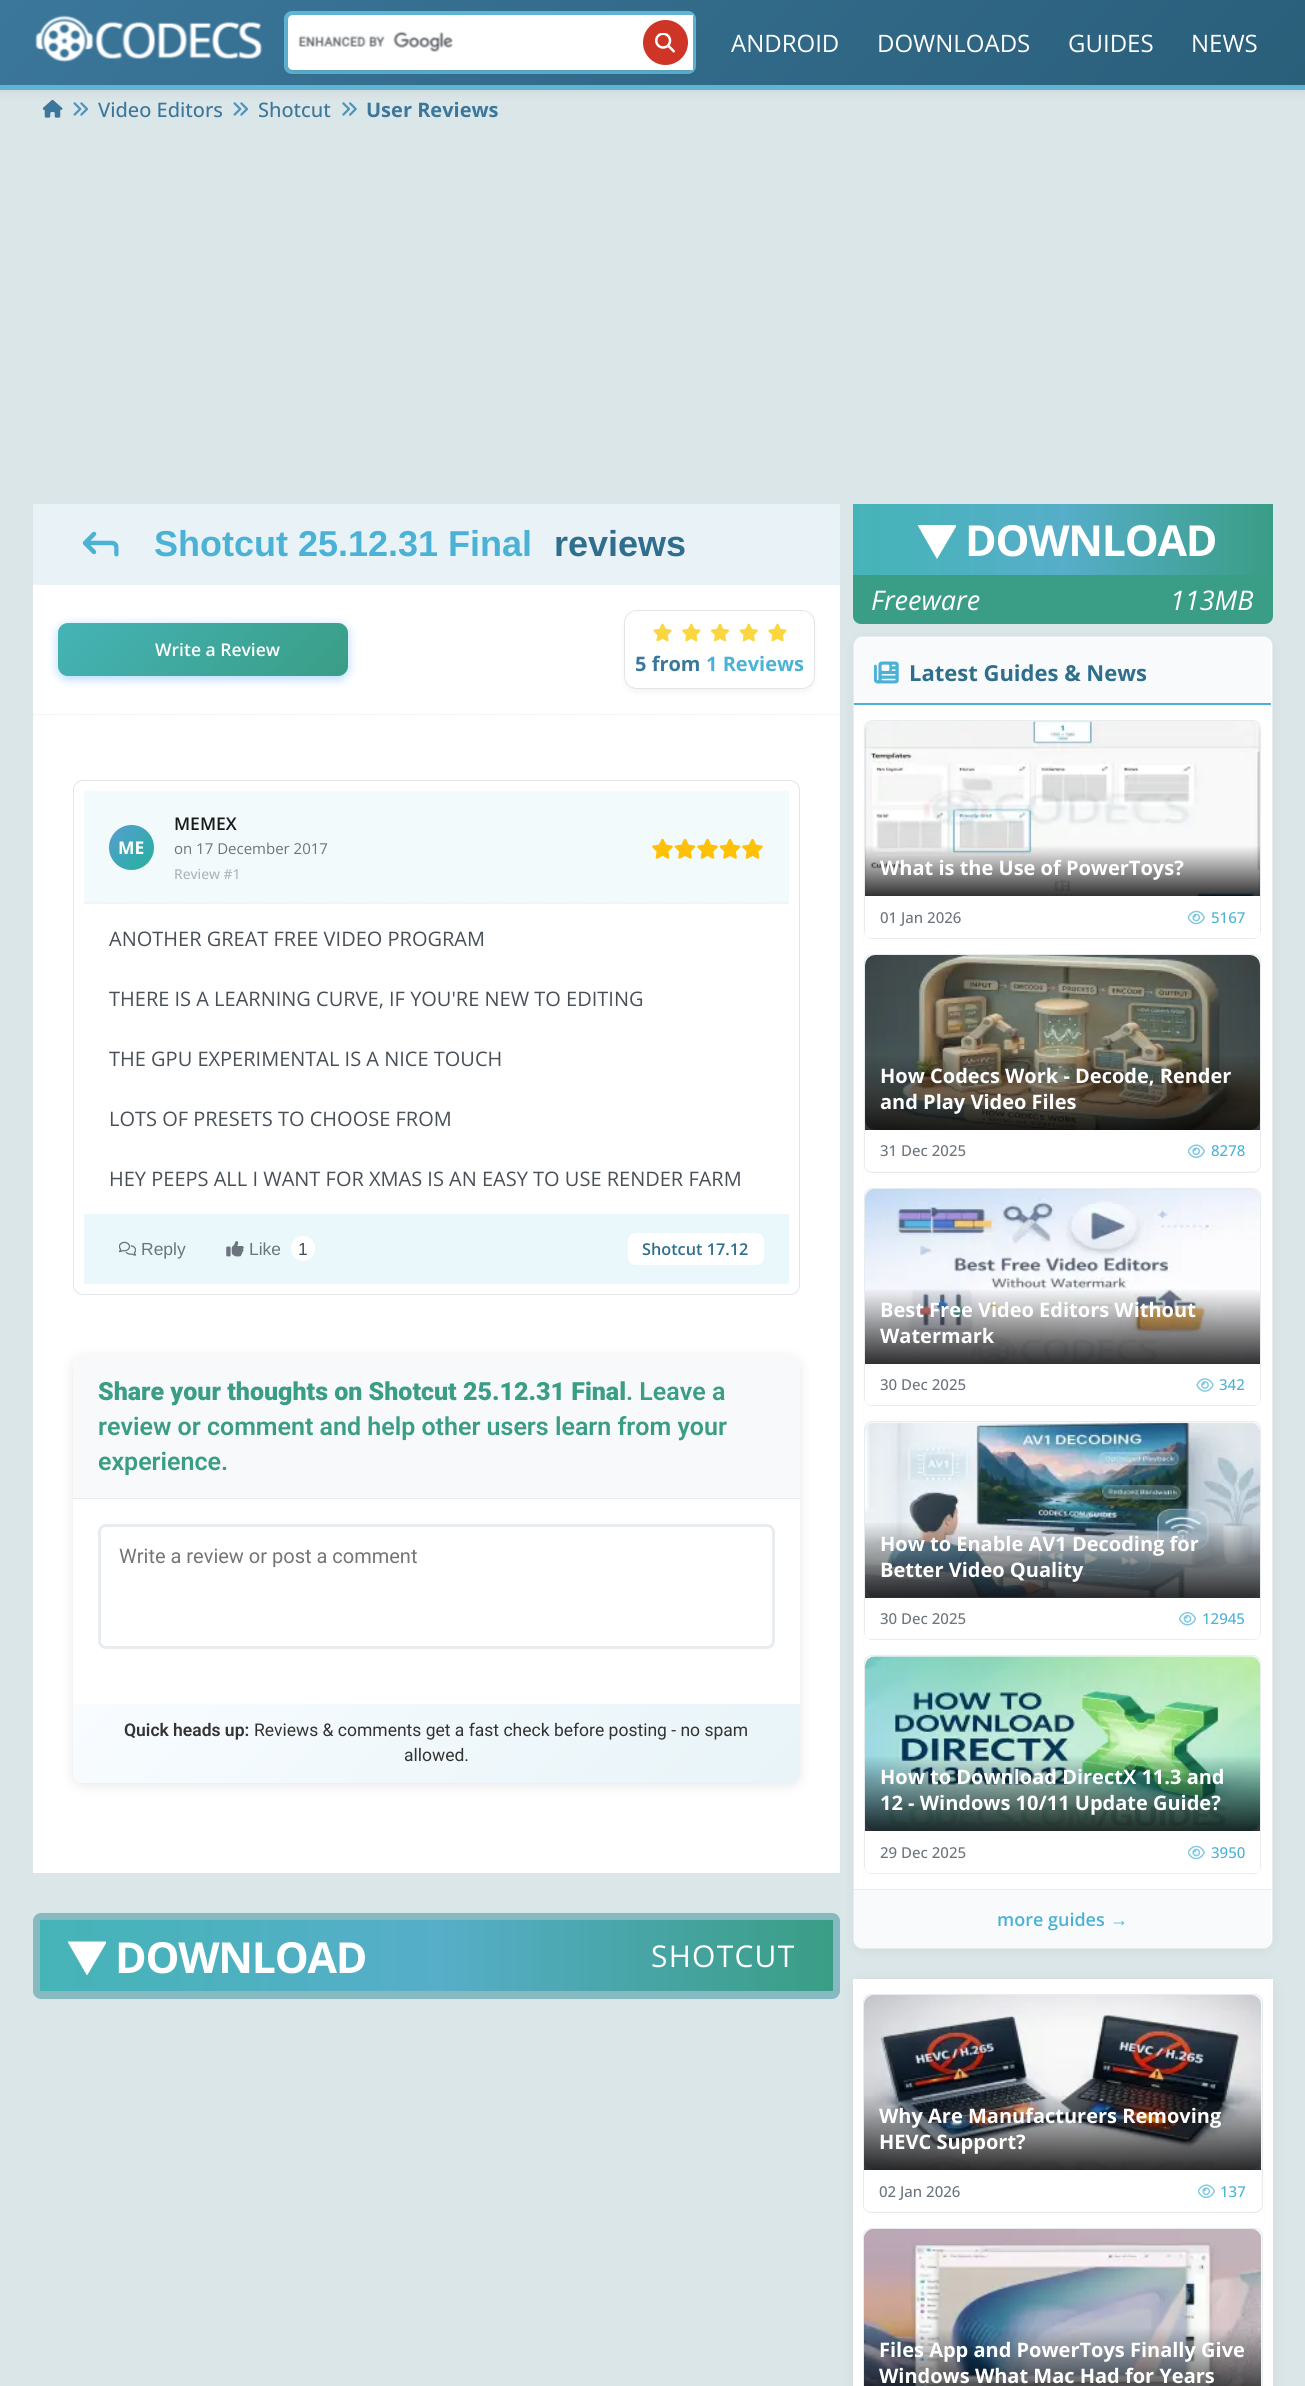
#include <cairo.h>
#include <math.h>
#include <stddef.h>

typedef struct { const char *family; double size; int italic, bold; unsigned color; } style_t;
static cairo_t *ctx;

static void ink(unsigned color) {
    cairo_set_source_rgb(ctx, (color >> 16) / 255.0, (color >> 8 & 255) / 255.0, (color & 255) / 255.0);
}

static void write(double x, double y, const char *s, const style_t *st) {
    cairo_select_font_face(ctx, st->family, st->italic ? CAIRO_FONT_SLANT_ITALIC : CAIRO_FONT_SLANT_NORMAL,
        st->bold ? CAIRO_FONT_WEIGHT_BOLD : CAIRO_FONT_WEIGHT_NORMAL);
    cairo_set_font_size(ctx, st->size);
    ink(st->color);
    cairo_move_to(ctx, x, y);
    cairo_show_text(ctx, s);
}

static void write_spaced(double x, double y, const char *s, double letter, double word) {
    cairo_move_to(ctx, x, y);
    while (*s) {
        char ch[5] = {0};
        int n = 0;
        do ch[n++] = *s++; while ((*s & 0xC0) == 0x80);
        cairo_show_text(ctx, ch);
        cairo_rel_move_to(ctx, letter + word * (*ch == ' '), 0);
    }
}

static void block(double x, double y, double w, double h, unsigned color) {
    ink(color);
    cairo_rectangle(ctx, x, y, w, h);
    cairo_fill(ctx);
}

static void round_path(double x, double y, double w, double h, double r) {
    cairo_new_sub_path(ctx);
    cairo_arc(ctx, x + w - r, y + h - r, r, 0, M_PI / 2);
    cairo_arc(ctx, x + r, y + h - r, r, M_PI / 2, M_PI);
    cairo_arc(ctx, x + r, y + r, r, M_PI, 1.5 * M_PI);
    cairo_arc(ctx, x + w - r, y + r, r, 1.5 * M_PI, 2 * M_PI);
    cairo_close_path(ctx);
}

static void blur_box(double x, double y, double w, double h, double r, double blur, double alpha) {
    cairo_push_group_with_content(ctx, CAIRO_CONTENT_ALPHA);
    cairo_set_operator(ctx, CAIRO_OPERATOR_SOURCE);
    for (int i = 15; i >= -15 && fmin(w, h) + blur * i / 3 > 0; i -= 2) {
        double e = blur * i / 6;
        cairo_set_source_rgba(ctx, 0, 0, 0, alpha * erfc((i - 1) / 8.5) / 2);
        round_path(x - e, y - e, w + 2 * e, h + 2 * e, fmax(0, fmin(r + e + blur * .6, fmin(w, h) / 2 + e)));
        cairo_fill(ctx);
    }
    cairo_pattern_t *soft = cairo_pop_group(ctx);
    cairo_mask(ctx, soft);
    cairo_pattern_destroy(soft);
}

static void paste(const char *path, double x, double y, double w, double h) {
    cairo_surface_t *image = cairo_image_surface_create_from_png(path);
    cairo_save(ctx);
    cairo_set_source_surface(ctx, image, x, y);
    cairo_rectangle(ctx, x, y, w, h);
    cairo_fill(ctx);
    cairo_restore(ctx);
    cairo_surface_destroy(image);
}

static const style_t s1 = {"Open Sans", 24, 0, 0, 0xffffff};
static const style_t s2 = {"Open Sans Medium", 20, 0, 0, 0x3b779b};
static const style_t s3 = {"Open Sans", 20, 0, 1, 0x3b779b};
static const style_t s4 = {"Liberation Sans", 36, 0, 1, 0x4bb2d5};
static const style_t s5 = {"Liberation Sans", 36, 0, 1, 0x2f6e8d};
static const style_t s6 = {"Open Sans SemiBold", 17.5, 0, 0, 0xffffff};
static const style_t s7 = {"Open Sans", 20, 0, 1, 0x4bb2d5};
static const style_t s8 = {"Open Sans", 17.5, 0, 1, 0xffffff};
static const style_t s9 = {"Open Sans SemiBold", 17.5, 0, 0, 0x1a1a1a};
static const style_t s10 = {"Open Sans", 15, 0, 0, 0x6c757d};
static const style_t s11 = {"Open Sans Medium", 13.75, 0, 0, 0xadb5bd};
static const style_t s12 = {"Open Sans", 20, 0, 0, 0x495057};
static const style_t s13 = {"Liberation Sans", 17.5, 0, 0, 0x6c757d};
static const style_t s14 = {"Liberation Sans", 17.5, 0, 0, 0x495057};
static const style_t s15 = {"Open Sans SemiBold", 16.25, 0, 0, 0x2f6e8d};
static const style_t s16 = {"Roboto Black", 25, 0, 0, 0x3a9d85};
static const style_t s17 = {"Roboto SemiBold", 25, 0, 0, 0x3a9d85};
static const style_t s18 = {"Roboto", 20, 0, 0, 0x757575};
static const style_t s19 = {"Roboto SemiBold", 17.5, 0, 0, 0x333333};
static const style_t s20 = {"Roboto", 17.5, 0, 0, 0x333333};
static const style_t s21 = {"Open Sans", 27, 1, 0, 0xffffff};
static const style_t s22 = {"Open Sans", 22, 0, 1, 0x2f6e8d};
static const style_t s23 = {"Open Sans", 20, 0, 1, 0xffffff};
static const style_t s24 = {"Open Sans Medium", 15, 0, 0, 0x6c757d};
static const style_t s25 = {"Open Sans Medium", 15, 0, 0, 0x4bb2d5};
static const style_t s26 = {"Open Sans SemiBold", 18, 0, 0, 0x4bb2d5};
static const style_t s27 = {"Liberation Sans", 18, 0, 1, 0x4bb2d5};

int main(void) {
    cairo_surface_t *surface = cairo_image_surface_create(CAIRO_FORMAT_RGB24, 1305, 2386);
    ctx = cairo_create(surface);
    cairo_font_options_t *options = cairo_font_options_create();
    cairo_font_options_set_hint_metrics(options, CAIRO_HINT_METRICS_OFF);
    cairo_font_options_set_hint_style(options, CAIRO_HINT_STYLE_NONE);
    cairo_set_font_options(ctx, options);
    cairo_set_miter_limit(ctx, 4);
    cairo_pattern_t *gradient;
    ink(0xdbe6e8);
    cairo_paint(ctx);
    paste("pic4.png", 43, 99, 20, 19);
    paste("pic5.png", 73, 102, 16, 14);
    paste("pic5.png", 233, 102, 16, 14);
    paste("pic6.png", 342, 102, 15, 14);
    ink(0x000000);
    blur_box(0, 0, 1305, 90, 0, 6, 0.1);
    gradient = cairo_pattern_create_linear(305, -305, 1000, 390);
    cairo_pattern_add_color_stop_rgba(gradient, 0, 0.231, 0.467, 0.608, 1);
    cairo_pattern_add_color_stop_rgba(gradient, 0.5, 0.196, 0.416, 0.541, 1);
    cairo_pattern_add_color_stop_rgba(gradient, 1, 0.165, 0.373, 0.478, 1);
    cairo_set_source(ctx, gradient);
    cairo_pattern_destroy(gradient);
    cairo_rectangle(ctx, 0, 0, 1305, 85);
    cairo_fill(ctx);
    block(0, 85, 1305, 5, 0x5fb3d3);
    paste("pic1.png", 35, 15, 228, 47);
    round_path(284, 11, 412, 63, 8);
    cairo_fill(ctx);
    ink(0x000000);
    blur_box(288, 18, 405, 55, 5, 2.5, 0.1);
    ink(0xffffff);
    cairo_new_path(ctx);
    cairo_move_to(ctx, 293, 15);
    cairo_line_to(ctx, 693, 15);
    cairo_line_to(ctx, 693, 70);
    cairo_line_to(ctx, 293, 70);
    cairo_curve_to(ctx, 290, 70, 288, 68, 288, 65);
    cairo_line_to(ctx, 288, 20);
    cairo_curve_to(ctx, 288, 17, 290, 15, 293, 15);
    cairo_close_path(ctx);
    cairo_fill(ctx);
    paste("pic2.png", 298, 31, 155, 21);
    ink(0xce3527);
    cairo_arc(ctx, 665.5, 42.5, 22.5, 0, 2 * M_PI);
    cairo_fill(ctx);
    paste("pic3.png", 655, 33, 20, 20);
    write(731, 52, "ANDROID", &s1);
    write(877, 52, "DOWNLOADS", &s1);
    write(1068, 52, "GUIDES", &s1);
    write(1191, 52, "NEWS", &s1);
    write(98, 117, "Video Editors", &s2);
    write(258, 117, "Shotcut", &s2);
    write(366, 117, "User Reviews", &s3);
    block(33, 585, 807, 1288, 0xffffff);
    block(33, 504, 807, 81, 0xe9f2f7);
    paste("pic7.png", 82, 531, 37, 26);
    write(154, 556, "Shotcut 25.12.31 Final", &s4);
    write(554, 556, "reviews", &s5);
    cairo_new_path(ctx);
    cairo_move_to(ctx, 32.5, 714.5);
    cairo_line_to(ctx, 840, 714.5);
    ink(0xe9ecef);
    cairo_set_line_width(ctx, 1.2);
    cairo_set_dash(ctx, (double[]){1.25, 1.25}, 2, 0);
    cairo_stroke(ctx);
    ink(0x007bff);
    blur_box(58, 625, 290, 54, 10, 5, 0.3);
    gradient = cairo_pattern_create_linear(117, 563, 288, 735);
    cairo_pattern_add_color_stop_rgba(gradient, 0, 0.271, 0.706, 0.718, 1);
    cairo_pattern_add_color_stop_rgba(gradient, 1, 0.227, 0.616, 0.522, 1);
    cairo_set_source(ctx, gradient);
    cairo_pattern_destroy(gradient);
    round_path(58, 623, 290, 53, 10);
    cairo_fill(ctx);
    write(155, 656, "Write a Review", &s6);
    ink(0x000000);
    blur_box(624, 614, 191, 79, 13, 3, 0.04);
    ink(0xffffff);
    round_path(624.5, 610.5, 190, 78, 12.5);
    cairo_fill_preserve(ctx);
    ink(0xe1e5e9);
    cairo_set_line_width(ctx, 1);
    cairo_set_dash(ctx, NULL, 0, 0);
    cairo_stroke(ctx);
    paste("pic8.png", 653, 623, 19, 19);
    paste("pic9.png", 682, 623, 19, 19);
    paste("pic10.png", 710, 623, 20, 19);
    paste("pic11.png", 739, 623, 19, 19);
    paste("pic8.png", 768, 623, 19, 19);
    write(635, 671, "5 from", &s3);
    write(706, 671, "1 Reviews", &s7);
    round_path(73.5, 780.5, 726, 514, 9.5);
    ink(0xe1e5e9);
    cairo_stroke(ctx);
    block(84, 791, 705, 113, 0xf2fafb);
    cairo_new_path(ctx);
    cairo_move_to(ctx, 84, 903);
    cairo_line_to(ctx, 789, 903);
    ink(0xe9ecef);
    cairo_set_line_width(ctx, 1.2);
    cairo_set_dash(ctx, (double[]){1.25, 1.25}, 2, 0);
    cairo_stroke(ctx);
    gradient = cairo_pattern_create_linear(109, 825, 154, 870);
    cairo_pattern_add_color_stop_rgba(gradient, 0, 0.341, 0.62, 0.82, 1);
    cairo_pattern_add_color_stop_rgba(gradient, 1, 0.141, 0.694, 0.62, 1);
    cairo_set_source(ctx, gradient);
    cairo_pattern_destroy(gradient);
    cairo_arc(ctx, 131.5, 847.5, 22.5, 0, 2 * M_PI);
    cairo_fill(ctx);
    write(118, 854, "ME", &s8);
    write(174, 830, "MEMEX", &s9);
    write(174, 854, "on 17 December 2017", &s10);
    write(174, 879, "Review #1", &s11);
    paste("pic12.png", 652, 838, 21, 21);
    paste("pic13.png", 674, 838, 22, 21);
    paste("pic12.png", 697, 838, 21, 21);
    paste("pic13.png", 719, 838, 22, 21);
    paste("pic12.png", 742, 838, 21, 21);
    write(109, 946, "ANOTHER GREAT FREE VIDEO PROGRAM", &s12);
    write(109, 1006, "THERE IS A LEARNING CURVE, IF YOU'RE NEW TO EDITING", &s12);
    write(109, 1066, "THE GPU EXPERIMENTAL IS A NICE TOUCH", &s12);
    write(109, 1126, "LOTS OF PRESETS TO CHOOSE FROM", &s12);
    write(109, 1186, "HEY PEEPS ALL I WANT FOR XMAS IS AN EASY TO USE RENDER FARM", &s12);
    block(84, 1214, 705, 70, 0xeaf8fb);
    paste("pic14.png", 119, 1241, 17, 15);
    write(141, 1255, "Reply", &s13);
    paste("pic15.png", 226, 1241, 18, 16);
    write(249, 1255, "Like", &s13);
    ink(0xffffff);
    round_path(291, 1236, 24, 25, 12);
    cairo_fill(ctx);
    write(298, 1255, "1", &s14);
    ink(0xffffff);
    round_path(628, 1233, 136, 32, 8);
    cairo_fill(ctx);
    write(642, 1255, "Shotcut 17.12", &s15);
    ink(0x000000);
    blur_box(73, 1358, 727, 427, 10, 6, 0.1);
    ink(0xffffff);
    round_path(73, 1355, 727, 428, 10);
    cairo_fill(ctx);
    ink(0xf8f9fa);
    cairo_new_path(ctx);
    cairo_move_to(ctx, 83, 1355);
    cairo_line_to(ctx, 790, 1355);
    cairo_curve_to(ctx, 795.5, 1355, 800, 1359.5, 800, 1365);
    cairo_line_to(ctx, 800, 1499);
    cairo_line_to(ctx, 73, 1499);
    cairo_line_to(ctx, 73, 1365);
    cairo_curve_to(ctx, 73, 1359.5, 77.5, 1355, 83, 1355);
    cairo_close_path(ctx);
    cairo_fill(ctx);
    block(73, 1498, 727, 1, 0xe9ecef);
    write(98, 1400, "Share your thoughts on Shotcut 25.12.31 Final", &s16);
    write(626, 1400, ". Leave a", &s17);
    write(98, 1435, "review or comment and help other users learn from your", &s17);
    write(98, 1470, "experience.", &s17);
    round_path(99.5, 1525.5, 674, 122, 6.5);
    ink(0xe9ecef);
    cairo_set_line_width(ctx, 3);
    cairo_set_dash(ctx, NULL, 0, 0);
    cairo_stroke(ctx);
    write(119, 1563, "Write a review or post a comment", &s18);
    gradient = cairo_pattern_create_linear(235, 1542, 638, 1945);
    cairo_pattern_add_color_stop_rgba(gradient, 0, 0.973, 0.988, 1, 1);
    cairo_pattern_add_color_stop_rgba(gradient, 1, 0.91, 0.957, 0.973, 1);
    cairo_set_source(ctx, gradient);
    cairo_pattern_destroy(gradient);
    cairo_new_path(ctx);
    cairo_move_to(ctx, 73, 1704);
    cairo_line_to(ctx, 800, 1704);
    cairo_line_to(ctx, 800, 1773);
    cairo_curve_to(ctx, 800, 1778.5, 795.5, 1783, 790, 1783);
    cairo_line_to(ctx, 83, 1783);
    cairo_curve_to(ctx, 77.5, 1783, 73, 1778.5, 73, 1773);
    cairo_close_path(ctx);
    cairo_fill(ctx);
    write(124, 1736, "Quick heads up:", &s19);
    write(254, 1736, "Reviews & comments get a fast check before posting - no spam", &s20);
    write(404, 1761, "allowed.", &s20);
    round_path(37, 1917, 799, 78, 4);
    ink(0x87bac0);
    cairo_set_line_width(ctx, 8);
    cairo_stroke(ctx);
    gradient = cairo_pattern_create_linear(40, 1956, 833, 1956);
    cairo_pattern_add_color_stop_rgba(gradient, 0, 0.271, 0.706, 0.718, 1);
    cairo_pattern_add_color_stop_rgba(gradient, 0.5, 0.337, 0.682, 0.788, 1);
    cairo_pattern_add_color_stop_rgba(gradient, 1, 0.227, 0.616, 0.522, 1);
    cairo_set_source(ctx, gradient);
    cairo_pattern_destroy(gradient);
    cairo_rectangle(ctx, 40, 1920, 793, 71);
    cairo_fill(ctx);
    cairo_save(ctx);
    cairo_rectangle(ctx, 68, 1941, 38, 34);
    cairo_clip(ctx);
    ink(0xffffff);
    cairo_new_path(ctx);
    cairo_move_to(ctx, 107, 1941.5);
    cairo_line_to(ctx, 87, 1975.5);
    cairo_line_to(ctx, 67.5, 1941.5);
    cairo_close_path(ctx);
    cairo_fill_preserve(ctx);
    cairo_set_line_width(ctx, 0.1);
    cairo_stroke(ctx);
    cairo_restore(ctx);
    cairo_select_font_face(ctx, "Open Sans", CAIRO_FONT_SLANT_NORMAL, CAIRO_FONT_WEIGHT_BOLD);
    cairo_set_font_size(ctx, 42.75);
    ink(0xffffff);
    write_spaced(115, 1973, "DOWNLOAD", -1.25, 0);
    cairo_select_font_face(ctx, "Open Sans", CAIRO_FONT_SLANT_NORMAL, CAIRO_FONT_WEIGHT_NORMAL);
    cairo_set_font_size(ctx, 30);
    write_spaced(651, 1967, "SHOTCUT", 1.25, 0);
    ink(0x000000);
    blur_box(853, 639, 420, 1312, 10, 5, 0.05);
    ink(0x3a9d85);
    round_path(853, 504, 420, 120, 8);
    cairo_fill(ctx);
    gradient = cairo_pattern_create_linear(853, 539, 1273, 539);
    cairo_pattern_add_color_stop_rgba(gradient, 0, 0.271, 0.706, 0.718, 1);
    cairo_pattern_add_color_stop_rgba(gradient, 0.5, 0.337, 0.682, 0.788, 1);
    cairo_pattern_add_color_stop_rgba(gradient, 1, 0.227, 0.616, 0.522, 1);
    cairo_set_source(ctx, gradient);
    cairo_pattern_destroy(gradient);
    cairo_rectangle(ctx, 853, 504, 420, 71);
    cairo_fill(ctx);
    cairo_save(ctx);
    cairo_rectangle(ctx, 918, 525, 38, 34);
    cairo_clip(ctx);
    ink(0xffffff);
    cairo_new_path(ctx);
    cairo_move_to(ctx, 957, 525);
    cairo_line_to(ctx, 937, 559);
    cairo_line_to(ctx, 917.5, 525);
    cairo_close_path(ctx);
    cairo_fill_preserve(ctx);
    cairo_set_line_width(ctx, 0.1);
    cairo_stroke(ctx);
    cairo_restore(ctx);
    cairo_select_font_face(ctx, "Open Sans", CAIRO_FONT_SLANT_NORMAL, CAIRO_FONT_WEIGHT_BOLD);
    cairo_set_font_size(ctx, 42.75);
    ink(0xffffff);
    write_spaced(965, 556, "DOWNLOAD", -1.25, 0);
    write(871, 610, "Freeware", &s21);
    write(1170, 610, "113MB", &s21);
    round_path(853.5, 636.5, 419, 1312, 9.5);
    cairo_fill_preserve(ctx);
    ink(0xe9ecef);
    cairo_set_line_width(ctx, 1);
    cairo_stroke(ctx);
    ink(0xf8fafb);
    cairo_new_path(ctx);
    cairo_move_to(ctx, 863, 638);
    cairo_line_to(ctx, 1262, 638);
    cairo_curve_to(ctx, 1267, 638, 1271, 642, 1271, 647);
    cairo_line_to(ctx, 1271, 705);
    cairo_line_to(ctx, 854, 705);
    cairo_line_to(ctx, 854, 647);
    cairo_curve_to(ctx, 854, 642, 858, 638, 863, 638);
    cairo_close_path(ctx);
    cairo_fill(ctx);
    block(854, 703, 417, 2, 0x4bb2d5);
    paste("pic16.png", 874, 661, 25, 23);
    write(909, 681, "Latest Guides & News", &s22);
    ink(0xffffff);
    cairo_new_path(ctx);
    cairo_move_to(ctx, 854, 705);
    cairo_line_to(ctx, 1271, 705);
    cairo_line_to(ctx, 1271, 1939);
    cairo_curve_to(ctx, 1271, 1944, 1267, 1948, 1262, 1948);
    cairo_line_to(ctx, 863, 1948);
    cairo_curve_to(ctx, 858, 1948, 854, 1944, 854, 1939);
    cairo_close_path(ctx);
    cairo_fill(ctx);
    ink(0xf8fafb);
    round_path(864.5, 720.5, 396, 218, 7.5);
    cairo_fill_preserve(ctx);
    ink(0xe8ecef);
    cairo_stroke(ctx);
    ink(0xf0f4f8);
    cairo_new_path(ctx);
    cairo_move_to(ctx, 873, 721);
    cairo_line_to(ctx, 1252, 721);
    cairo_curve_to(ctx, 1256.5, 721, 1260, 724.5, 1260, 729);
    cairo_line_to(ctx, 1260, 896);
    cairo_line_to(ctx, 865, 896);
    cairo_line_to(ctx, 865, 729);
    cairo_curve_to(ctx, 865, 724.5, 868.5, 721, 873, 721);
    cairo_close_path(ctx);
    cairo_fill(ctx);
    paste("pic17.png", 865, 721, 395, 175);
    gradient = cairo_pattern_create_linear(1063, 896, 1063, 845);
    cairo_pattern_add_color_stop_rgba(gradient, 0, 0, 0, 0, 0.8);
    cairo_pattern_add_color_stop_rgba(gradient, 1, 0, 0, 0, 0);
    cairo_set_source(ctx, gradient);
    cairo_pattern_destroy(gradient);
    cairo_rectangle(ctx, 865, 846, 395, 50);
    cairo_fill(ctx);
    write(880, 875, "What is the Use of PowerToys?", &s23);
    cairo_new_path(ctx);
    cairo_move_to(ctx, 865, 896);
    cairo_line_to(ctx, 1260, 896);
    cairo_line_to(ctx, 1260, 932);
    cairo_curve_to(ctx, 1260, 935.5, 1257.5, 938, 1254, 938);
    cairo_line_to(ctx, 871, 938);
    cairo_curve_to(ctx, 867.5, 938, 865, 935.5, 865, 932);
    cairo_close_path(ctx);
    cairo_fill(ctx);
    write(880, 923, "01 Jan 2026", &s24);
    paste("pic18.png", 1188, 910, 17, 15);
    write(1211, 923, "5167", &s25);
    ink(0xf8fafb);
    round_path(864.5, 954.5, 396, 218, 7.5);
    cairo_fill_preserve(ctx);
    ink(0xe8ecef);
    cairo_stroke(ctx);
    ink(0xf0f4f8);
    cairo_new_path(ctx);
    cairo_move_to(ctx, 873, 955);
    cairo_line_to(ctx, 1252, 955);
    cairo_curve_to(ctx, 1256.5, 955, 1260, 958.5, 1260, 963);
    cairo_line_to(ctx, 1260, 1130);
    cairo_line_to(ctx, 865, 1130);
    cairo_line_to(ctx, 865, 963);
    cairo_curve_to(ctx, 865, 958.5, 868.5, 955, 873, 955);
    cairo_close_path(ctx);
    cairo_fill(ctx);
    paste("pic19.png", 865, 955, 395, 175);
    gradient = cairo_pattern_create_linear(1063, 1130, 1063, 1054);
    cairo_pattern_add_color_stop_rgba(gradient, 0, 0, 0, 0, 0.8);
    cairo_pattern_add_color_stop_rgba(gradient, 1, 0, 0, 0, 0);
    cairo_set_source(ctx, gradient);
    cairo_pattern_destroy(gradient);
    cairo_rectangle(ctx, 865, 1056, 395, 74);
    cairo_fill(ctx);
    write(880, 1083, "How Codecs Work - Decode, Render", &s23);
    write(880, 1109, "and Play Video Files", &s23);
    cairo_new_path(ctx);
    cairo_move_to(ctx, 865, 1130);
    cairo_line_to(ctx, 1260, 1130);
    cairo_line_to(ctx, 1260, 1165);
    cairo_curve_to(ctx, 1260, 1168.5, 1257.5, 1171, 1254, 1171);
    cairo_line_to(ctx, 871, 1171);
    cairo_curve_to(ctx, 867.5, 1171, 865, 1168.5, 865, 1165);
    cairo_close_path(ctx);
    cairo_fill(ctx);
    write(880, 1156, "31 Dec 2025", &s24);
    paste("pic20.png", 1188, 1144, 17, 14);
    write(1211, 1156, "8278", &s25);
    ink(0xf8fafb);
    round_path(864.5, 1188.5, 396, 217, 7.5);
    cairo_fill_preserve(ctx);
    ink(0xe8ecef);
    cairo_stroke(ctx);
    ink(0xf0f4f8);
    cairo_new_path(ctx);
    cairo_move_to(ctx, 873, 1189);
    cairo_line_to(ctx, 1252, 1189);
    cairo_curve_to(ctx, 1256.5, 1189, 1260, 1192.5, 1260, 1197);
    cairo_line_to(ctx, 1260, 1364);
    cairo_line_to(ctx, 865, 1364);
    cairo_line_to(ctx, 865, 1197);
    cairo_curve_to(ctx, 865, 1192.5, 868.5, 1189, 873, 1189);
    cairo_close_path(ctx);
    cairo_fill(ctx);
    paste("pic21.png", 865, 1189, 395, 175);
    gradient = cairo_pattern_create_linear(1063, 1364, 1063, 1288);
    cairo_pattern_add_color_stop_rgba(gradient, 0, 0, 0, 0, 0.8);
    cairo_pattern_add_color_stop_rgba(gradient, 1, 0, 0, 0, 0);
    cairo_set_source(ctx, gradient);
    cairo_pattern_destroy(gradient);
    cairo_rectangle(ctx, 865, 1290, 395, 74);
    cairo_fill(ctx);
    write(880, 1317, "Best Free Video Editors Without", &s23);
    write(880, 1343, "Watermark", &s23);
    cairo_new_path(ctx);
    cairo_move_to(ctx, 865, 1364);
    cairo_line_to(ctx, 1260, 1364);
    cairo_line_to(ctx, 1260, 1399);
    cairo_curve_to(ctx, 1260, 1402.5, 1257.5, 1405, 1254, 1405);
    cairo_line_to(ctx, 871, 1405);
    cairo_curve_to(ctx, 867.5, 1405, 865, 1402.5, 865, 1399);
    cairo_close_path(ctx);
    cairo_fill(ctx);
    write(880, 1390, "30 Dec 2025", &s24);
    paste("pic22.png", 1196, 1378, 18, 14);
    write(1219, 1390, "342", &s25);
    ink(0xf8fafb);
    round_path(864.5, 1421.5, 396, 218, 7.5);
    cairo_fill_preserve(ctx);
    ink(0xe8ecef);
    cairo_stroke(ctx);
    ink(0xf0f4f8);
    cairo_new_path(ctx);
    cairo_move_to(ctx, 873, 1423);
    cairo_line_to(ctx, 1252, 1423);
    cairo_curve_to(ctx, 1256.5, 1423, 1260, 1426.5, 1260, 1431);
    cairo_line_to(ctx, 1260, 1598);
    cairo_line_to(ctx, 865, 1598);
    cairo_line_to(ctx, 865, 1431);
    cairo_curve_to(ctx, 865, 1426.5, 868.5, 1423, 873, 1423);
    cairo_close_path(ctx);
    cairo_fill(ctx);
    paste("pic23.png", 865, 1422, 395, 176);
    gradient = cairo_pattern_create_linear(1063, 1598, 1063, 1521);
    cairo_pattern_add_color_stop_rgba(gradient, 0, 0, 0, 0, 0.8);
    cairo_pattern_add_color_stop_rgba(gradient, 1, 0, 0, 0, 0);
    cairo_set_source(ctx, gradient);
    cairo_pattern_destroy(gradient);
    cairo_rectangle(ctx, 865, 1523, 395, 75);
    cairo_fill(ctx);
    write(880, 1551, "How to Enable AV1 Decoding for", &s23);
    write(880, 1577, "Better Video Quality", &s23);
    cairo_new_path(ctx);
    cairo_move_to(ctx, 865, 1598);
    cairo_line_to(ctx, 1260, 1598);
    cairo_line_to(ctx, 1260, 1633);
    cairo_curve_to(ctx, 1260, 1636.5, 1257.5, 1639, 1254, 1639);
    cairo_line_to(ctx, 871, 1639);
    cairo_curve_to(ctx, 867.5, 1639, 865, 1636.5, 865, 1633);
    cairo_close_path(ctx);
    cairo_fill(ctx);
    write(880, 1624, "30 Dec 2025", &s24);
    paste("pic24.png", 1179, 1612, 17, 14);
    write(1202, 1624, "12945", &s25);
    ink(0xf8fafb);
    round_path(864.5, 1655.5, 396, 218, 7.5);
    cairo_fill_preserve(ctx);
    ink(0xe8ecef);
    cairo_stroke(ctx);
    ink(0xf0f4f8);
    cairo_new_path(ctx);
    cairo_move_to(ctx, 873, 1656);
    cairo_line_to(ctx, 1252, 1656);
    cairo_curve_to(ctx, 1256.5, 1656, 1260, 1659.5, 1260, 1664);
    cairo_line_to(ctx, 1260, 1831);
    cairo_line_to(ctx, 865, 1831);
    cairo_line_to(ctx, 865, 1664);
    cairo_curve_to(ctx, 865, 1659.5, 868.5, 1656, 873, 1656);
    cairo_close_path(ctx);
    cairo_fill(ctx);
    paste("pic25.png", 865, 1656, 395, 175);
    gradient = cairo_pattern_create_linear(1063, 1831, 1063, 1755);
    cairo_pattern_add_color_stop_rgba(gradient, 0, 0, 0, 0, 0.8);
    cairo_pattern_add_color_stop_rgba(gradient, 1, 0, 0, 0, 0);
    cairo_set_source(ctx, gradient);
    cairo_pattern_destroy(gradient);
    cairo_rectangle(ctx, 865, 1757, 395, 74);
    cairo_fill(ctx);
    write(880, 1784, "How to Download DirectX 11.3 and", &s23);
    write(880, 1810, "12 - Windows 10/11 Update Guide?", &s23);
    cairo_new_path(ctx);
    cairo_move_to(ctx, 865, 1831);
    cairo_line_to(ctx, 1260, 1831);
    cairo_line_to(ctx, 1260, 1867);
    cairo_curve_to(ctx, 1260, 1870.5, 1257.5, 1873, 1254, 1873);
    cairo_line_to(ctx, 871, 1873);
    cairo_curve_to(ctx, 867.5, 1873, 865, 1870.5, 865, 1867);
    cairo_close_path(ctx);
    cairo_fill(ctx);
    write(880, 1858, "29 Dec 2025", &s24);
    paste("pic18.png", 1188, 1845, 17, 15);
    write(1211, 1858, "3950", &s25);
    ink(0xf8fafb);
    cairo_new_path(ctx);
    cairo_move_to(ctx, 854, 1889);
    cairo_line_to(ctx, 1271, 1889);
    cairo_line_to(ctx, 1271, 1939);
    cairo_curve_to(ctx, 1271, 1944, 1267, 1948, 1262, 1948);
    cairo_line_to(ctx, 863, 1948);
    cairo_curve_to(ctx, 858, 1948, 854, 1944, 854, 1939);
    cairo_close_path(ctx);
    cairo_fill(ctx);
    block(854, 1889, 417, 1, 0xe8ecef);
    write(997, 1926, "more guides", &s26);
    write(1110, 1926, "→", &s27);
    ink(0x000000);
    blur_box(853, 1981, 420, 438, 10, 7.5, 0.06);
    block(853, 1979, 420, 407, 0xffffff);
    ink(0xf8fafb);
    round_path(863.5, 1994.5, 399, 218, 7.5);
    cairo_fill_preserve(ctx);
    ink(0xe8ecef);
    cairo_stroke(ctx);
    ink(0xf0f4f8);
    cairo_new_path(ctx);
    cairo_move_to(ctx, 872, 1995);
    cairo_line_to(ctx, 1253, 1995);
    cairo_curve_to(ctx, 1257.5, 1995, 1261, 1998.5, 1261, 2003);
    cairo_line_to(ctx, 1261, 2170);
    cairo_line_to(ctx, 864, 2170);
    cairo_line_to(ctx, 864, 2003);
    cairo_curve_to(ctx, 864, 1998.5, 867.5, 1995, 872, 1995);
    cairo_close_path(ctx);
    cairo_fill(ctx);
    paste("pic26.png", 864, 1995, 397, 175);
    gradient = cairo_pattern_create_linear(1063, 2170, 1063, 2094);
    cairo_pattern_add_color_stop_rgba(gradient, 0, 0, 0, 0, 0.8);
    cairo_pattern_add_color_stop_rgba(gradient, 1, 0, 0, 0, 0);
    cairo_set_source(ctx, gradient);
    cairo_pattern_destroy(gradient);
    cairo_rectangle(ctx, 864, 2096, 397, 74);
    cairo_fill(ctx);
    write(879, 2123, "Why Are Manufacturers Removing", &s23);
    write(879, 2149, "HEVC Support?", &s23);
    cairo_new_path(ctx);
    cairo_move_to(ctx, 864, 2170);
    cairo_line_to(ctx, 1261, 2170);
    cairo_line_to(ctx, 1261, 2205);
    cairo_curve_to(ctx, 1261, 2208.5, 1258.5, 2211, 1255, 2211);
    cairo_line_to(ctx, 870, 2211);
    cairo_curve_to(ctx, 866.5, 2211, 864, 2208.5, 864, 2205);
    cairo_close_path(ctx);
    cairo_fill(ctx);
    write(879, 2197, "02 Jan 2026", &s24);
    paste("pic20.png", 1198, 2184, 17, 14);
    write(1220, 2197, "137", &s25);
    ink(0xf8fafb);
    round_path(863.5, 2228.5, 399, 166, 7.5);
    cairo_fill_preserve(ctx);
    ink(0xe8ecef);
    cairo_stroke(ctx);
    ink(0xf0f4f8);
    cairo_new_path(ctx);
    cairo_move_to(ctx, 872, 2229);
    cairo_line_to(ctx, 1253, 2229);
    cairo_curve_to(ctx, 1257.5, 2229, 1261, 2232.5, 1261, 2237);
    cairo_line_to(ctx, 1261, 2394);
    cairo_line_to(ctx, 864, 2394);
    cairo_line_to(ctx, 864, 2237);
    cairo_curve_to(ctx, 864, 2232.5, 867.5, 2229, 872, 2229);
    cairo_close_path(ctx);
    cairo_fill(ctx);
    paste("pic27.png", 864, 2229, 397, 157);
    write(879, 2357, "Files App and PowerToys Finally Give", &s23);
    write(879, 2383, "Windows What Mac Had for Years", &s23);
    cairo_surface_write_to_png(surface, "screenshot.png");
    cairo_font_options_destroy(options);
    cairo_destroy(ctx);
    cairo_surface_destroy(surface);
    return 0;
}
